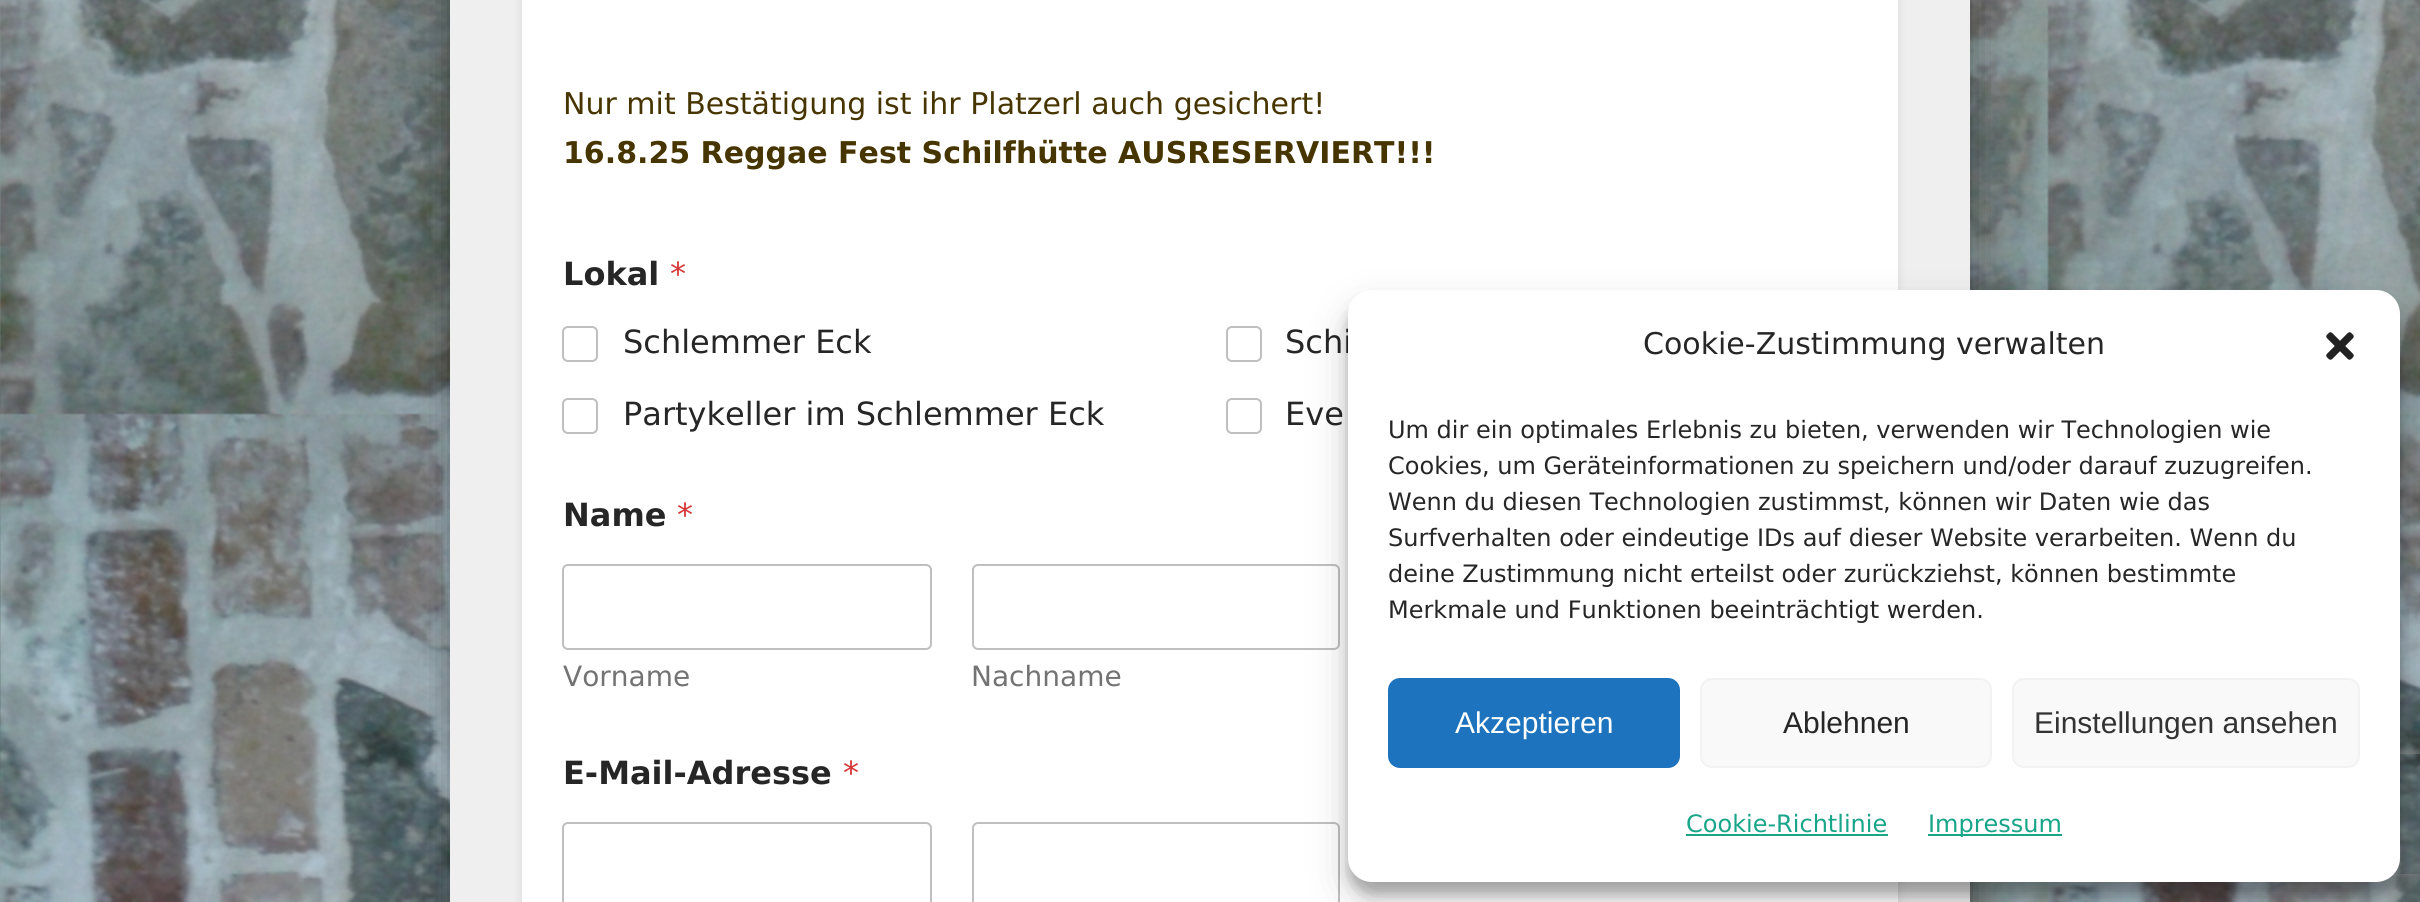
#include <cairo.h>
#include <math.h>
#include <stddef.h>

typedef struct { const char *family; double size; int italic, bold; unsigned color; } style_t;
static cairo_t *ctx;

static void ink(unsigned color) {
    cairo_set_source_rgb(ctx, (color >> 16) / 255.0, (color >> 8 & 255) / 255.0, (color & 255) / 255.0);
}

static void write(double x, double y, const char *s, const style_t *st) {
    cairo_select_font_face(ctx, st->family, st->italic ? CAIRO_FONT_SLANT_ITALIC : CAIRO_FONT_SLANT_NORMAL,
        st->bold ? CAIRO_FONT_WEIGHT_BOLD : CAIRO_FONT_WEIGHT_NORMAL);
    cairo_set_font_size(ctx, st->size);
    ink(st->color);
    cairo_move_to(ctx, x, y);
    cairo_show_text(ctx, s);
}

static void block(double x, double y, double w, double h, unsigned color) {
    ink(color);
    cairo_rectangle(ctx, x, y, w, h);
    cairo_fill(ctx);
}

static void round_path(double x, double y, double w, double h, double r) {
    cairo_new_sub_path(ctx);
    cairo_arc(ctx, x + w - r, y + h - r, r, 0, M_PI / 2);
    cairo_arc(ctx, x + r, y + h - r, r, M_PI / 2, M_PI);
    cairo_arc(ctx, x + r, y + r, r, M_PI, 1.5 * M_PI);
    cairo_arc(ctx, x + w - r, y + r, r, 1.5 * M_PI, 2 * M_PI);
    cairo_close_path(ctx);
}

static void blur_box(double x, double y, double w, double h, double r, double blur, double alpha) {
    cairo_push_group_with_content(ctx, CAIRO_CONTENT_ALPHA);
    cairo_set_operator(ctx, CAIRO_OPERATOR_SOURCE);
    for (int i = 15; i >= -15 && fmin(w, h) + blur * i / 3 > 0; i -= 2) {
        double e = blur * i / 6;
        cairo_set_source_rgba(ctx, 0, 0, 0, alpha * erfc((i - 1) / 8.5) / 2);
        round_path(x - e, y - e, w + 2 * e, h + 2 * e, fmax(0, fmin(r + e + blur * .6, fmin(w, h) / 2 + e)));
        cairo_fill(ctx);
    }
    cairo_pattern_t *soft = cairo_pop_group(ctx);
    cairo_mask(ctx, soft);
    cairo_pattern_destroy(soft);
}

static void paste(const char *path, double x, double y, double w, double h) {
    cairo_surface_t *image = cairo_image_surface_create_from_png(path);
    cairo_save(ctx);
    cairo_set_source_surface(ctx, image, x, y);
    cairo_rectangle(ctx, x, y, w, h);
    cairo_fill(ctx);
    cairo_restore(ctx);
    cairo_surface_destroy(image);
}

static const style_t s1 = {"DejaVu Sans", 30, 0, 0, 0x473500};
static const style_t s2 = {"DejaVu Sans", 30, 0, 1, 0x473500};
static const style_t s3 = {"DejaVu Sans", 32, 0, 1, 0x262626};
static const style_t s4 = {"DejaVu Sans", 32, 0, 0, 0xd63637};
static const style_t s5 = {"DejaVu Sans", 32, 0, 0, 0x262626};
static const style_t s6 = {"DejaVu Sans", 28, 0, 0, 0x737373};
static const style_t s7 = {"DejaVu Sans", 30, 0, 0, 0x262626};
static const style_t s8 = {"DejaVu Sans", 24, 0, 0, 0x262626};
static const style_t s9 = {"Liberation Sans", 30, 0, 0, 0xffffff};
static const style_t s10 = {"Liberation Sans", 30, 0, 0, 0x262626};
static const style_t s11 = {"Liberation Sans", 30, 0, 0, 0x333333};
static const style_t s12 = {"DejaVu Sans", 24, 0, 0, 0x18a589};

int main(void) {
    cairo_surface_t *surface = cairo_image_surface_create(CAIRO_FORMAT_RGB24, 2420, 902);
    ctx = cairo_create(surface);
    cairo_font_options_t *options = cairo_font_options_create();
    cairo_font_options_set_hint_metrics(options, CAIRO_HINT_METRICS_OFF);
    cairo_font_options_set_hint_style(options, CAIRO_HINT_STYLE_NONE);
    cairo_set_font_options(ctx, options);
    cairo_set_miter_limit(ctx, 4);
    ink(0xffffff);
    cairo_paint(ctx);
    paste("pic1.png", 0, 0, 2420, 902);
    ink(0x000000);
    blur_box(450, -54, 1520, 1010, 0, 18, 0.4);
    block(450, 0, 1520, 902, 0xefefef);
    ink(0x000000);
    blur_box(522, -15, 1376, 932, 0, 5, 0.1);
    block(522, 0, 1376, 902, 0xffffff);
    write(563, 114, "Nur mit Bestätigung ist ihr Platzerl auch gesichert!", &s1);
    write(563, 163, "16.8.25 Reggae Fest Schilfhütte AUSRESERVIERT!!!", &s2);
    write(563, 285, "Lokal", &s3);
    write(670, 285, "*", &s4);
    round_path(563, 327, 34, 34, 5);
    ink(0xbfbfbf);
    cairo_stroke(ctx);
    write(623, 353, "Schlemmer Eck", &s5);
    round_path(1227, 327, 34, 34, 5);
    ink(0xbfbfbf);
    cairo_stroke(ctx);
    write(1285, 353, "Schi", &s5);
    round_path(563, 399, 34, 34, 5);
    ink(0xbfbfbf);
    cairo_stroke(ctx);
    write(623, 425, "Partykeller im Schlemmer Eck", &s5);
    round_path(1227, 399, 34, 34, 5);
    ink(0xbfbfbf);
    cairo_stroke(ctx);
    write(1285, 425, "Eve", &s5);
    write(563, 526, "Name", &s3);
    write(677, 526, "*", &s4);
    round_path(563, 565, 368, 84, 5);
    ink(0xbfbfbf);
    cairo_stroke(ctx);
    write(563, 686, "Vorname", &s6);
    round_path(973, 565, 366, 84, 5);
    ink(0xbfbfbf);
    cairo_stroke(ctx);
    write(971, 686, "Nachname", &s6);
    write(563, 784, "E-Mail-Adresse", &s3);
    write(843, 784, "*", &s4);
    round_path(563, 823, 368, 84, 5);
    ink(0xbfbfbf);
    cairo_stroke(ctx);
    round_path(973, 823, 366, 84, 5);
    cairo_stroke(ctx);
    ink(0x000000);
    blur_box(1348, 302, 1052, 592, 24, 6, 0.23);
    blur_box(1348, 310, 1052, 592, 24, 20, 0.19);
    cairo_save(ctx);
    cairo_set_fill_rule(ctx, CAIRO_FILL_RULE_EVEN_ODD);
    cairo_new_path(ctx);
    cairo_move_to(ctx, 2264, 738);
    cairo_line_to(ctx, 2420, 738);
    cairo_line_to(ctx, 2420, 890);
    cairo_line_to(ctx, 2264, 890);
    cairo_close_path(ctx);
    cairo_move_to(ctx, 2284, 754);
    cairo_line_to(ctx, 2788, 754);
    cairo_curve_to(ctx, 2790, 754, 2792, 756, 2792, 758);
    cairo_line_to(ctx, 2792, 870);
    cairo_curve_to(ctx, 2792, 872, 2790, 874, 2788, 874);
    cairo_line_to(ctx, 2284, 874);
    cairo_curve_to(ctx, 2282, 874, 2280, 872, 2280, 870);
    cairo_line_to(ctx, 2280, 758);
    cairo_curve_to(ctx, 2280, 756, 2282, 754, 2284, 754);
    cairo_close_path(ctx);
    cairo_clip(ctx);
    ink(0x808080);
    blur_box(2280, 754, 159, 120, 4, 5, 1);
    cairo_restore(ctx);
    ink(0xffffff);
    round_path(1348, 290, 1052, 592, 24);
    cairo_fill(ctx);
    write(1643, 354, "Cookie-Zustimmung verwalten", &s7);
    paste("pic2.png", 2326, 332, 28, 28);
    write(1388, 438, "Um dir ein optimales Erlebnis zu bieten, verwenden wir Technologien wie", &s8);
    write(1388, 474, "Cookies, um Geräteinformationen zu speichern und/oder darauf zuzugreifen.", &s8);
    write(1388, 510, "Wenn du diesen Technologien zustimmst, können wir Daten wie das", &s8);
    write(1388, 546, "Surfverhalten oder eindeutige IDs auf dieser Website verarbeiten. Wenn du", &s8);
    write(1388, 582, "deine Zustimmung nicht erteilst oder zurückziehst, können bestimmte", &s8);
    write(1388, 618, "Merkmale und Funktionen beeinträchtigt werden.", &s8);
    ink(0x1e73be);
    round_path(1389, 679, 290, 88, 11);
    cairo_fill_preserve(ctx);
    cairo_stroke(ctx);
    write(1455, 733, "Akzeptieren", &s9);
    ink(0xf9f9f9);
    round_path(1701, 679, 290, 88, 11);
    cairo_fill_preserve(ctx);
    ink(0xf2f2f2);
    cairo_stroke(ctx);
    write(1783, 733, "Ablehnen", &s10);
    ink(0xf9f9f9);
    round_path(2013, 679, 346, 88, 11);
    cairo_fill_preserve(ctx);
    ink(0xf2f2f2);
    cairo_stroke(ctx);
    write(2034, 733, "Einstellungen ansehen", &s11);
    write(1686, 832, "Cookie-Richtlinie", &s12);
    block(1686, 834, 202, 2, 0x18a589);
    block(1928, 834, 134, 2, 0x18a589);
    write(1928, 832, "Impressum", &s12);
    cairo_surface_write_to_png(surface, "screenshot.png");
    cairo_font_options_destroy(options);
    cairo_destroy(ctx);
    cairo_surface_destroy(surface);
    return 0;
}
